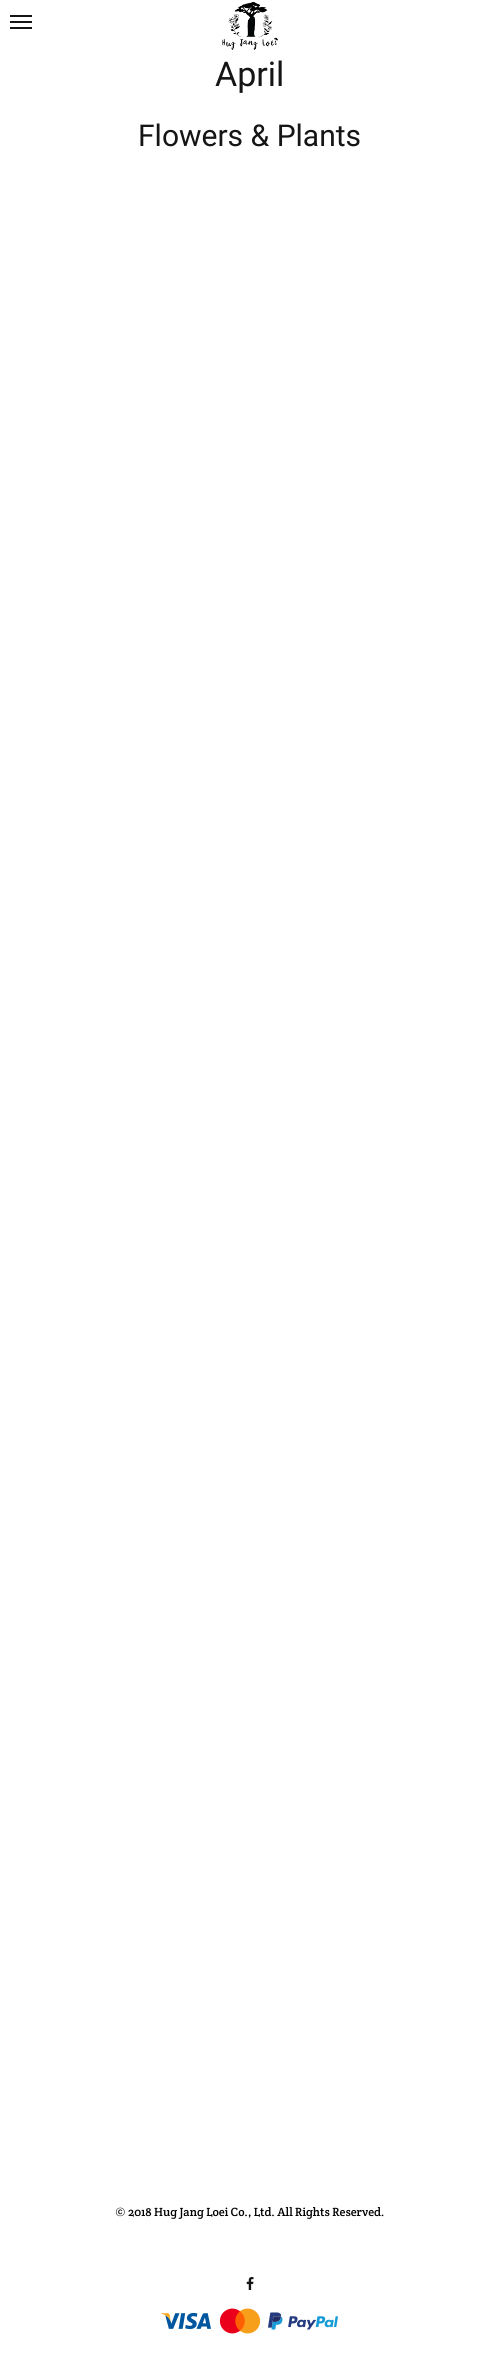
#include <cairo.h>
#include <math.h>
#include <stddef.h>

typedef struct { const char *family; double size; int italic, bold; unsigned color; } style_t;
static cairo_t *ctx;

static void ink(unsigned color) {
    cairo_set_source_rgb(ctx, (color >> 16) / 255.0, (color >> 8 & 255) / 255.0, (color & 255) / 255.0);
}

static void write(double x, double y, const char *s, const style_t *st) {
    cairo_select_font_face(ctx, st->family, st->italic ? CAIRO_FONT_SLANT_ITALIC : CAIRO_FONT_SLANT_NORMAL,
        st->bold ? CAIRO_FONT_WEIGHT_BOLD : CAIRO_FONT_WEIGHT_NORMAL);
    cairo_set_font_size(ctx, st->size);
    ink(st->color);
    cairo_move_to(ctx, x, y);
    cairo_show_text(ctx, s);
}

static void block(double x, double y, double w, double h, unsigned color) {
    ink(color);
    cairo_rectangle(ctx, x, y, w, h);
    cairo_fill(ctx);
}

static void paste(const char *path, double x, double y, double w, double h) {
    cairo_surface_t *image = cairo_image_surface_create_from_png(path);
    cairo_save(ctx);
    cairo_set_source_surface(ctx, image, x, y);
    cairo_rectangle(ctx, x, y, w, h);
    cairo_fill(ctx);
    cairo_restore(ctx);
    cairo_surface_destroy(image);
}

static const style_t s1 = {"Roboto", 34, 0, 0, 0x151515};
static const style_t s2 = {"Roboto", 30, 0, 0, 0x151515};
static const style_t s3 = {"Crete Round", 12, 0, 0, 0x000000};

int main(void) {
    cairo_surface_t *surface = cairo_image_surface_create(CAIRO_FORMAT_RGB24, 499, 2366);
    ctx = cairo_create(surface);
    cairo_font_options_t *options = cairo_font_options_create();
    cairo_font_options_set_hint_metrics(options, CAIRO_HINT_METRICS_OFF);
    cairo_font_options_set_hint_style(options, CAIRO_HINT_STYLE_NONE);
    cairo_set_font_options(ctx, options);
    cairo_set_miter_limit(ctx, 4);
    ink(0xffffff);
    cairo_paint(ctx);
    block(10, 15, 22, 2, 0x151515);
    block(10, 21, 22, 2, 0x151515);
    block(10, 27, 22, 2, 0x151515);
    paste("pic1.png", 222, 1, 56, 49);
    write(215, 86, "April", &s1);
    write(138, 146, "Flowers & Plants", &s2);
    write(115, 2216, "© 2018 Hug Jang Loei Co., Ltd. All Rights Reserved.", &s3);
    paste("pic2.png", 246, 2277, 8, 13);
    paste("pic3.png", 161, 2312, 50, 18);
    paste("pic4.png", 219, 2308, 42, 26);
    paste("pic5.png", 268, 2312, 70, 18);
    cairo_surface_write_to_png(surface, "screenshot.png");
    cairo_font_options_destroy(options);
    cairo_destroy(ctx);
    cairo_surface_destroy(surface);
    return 0;
}
